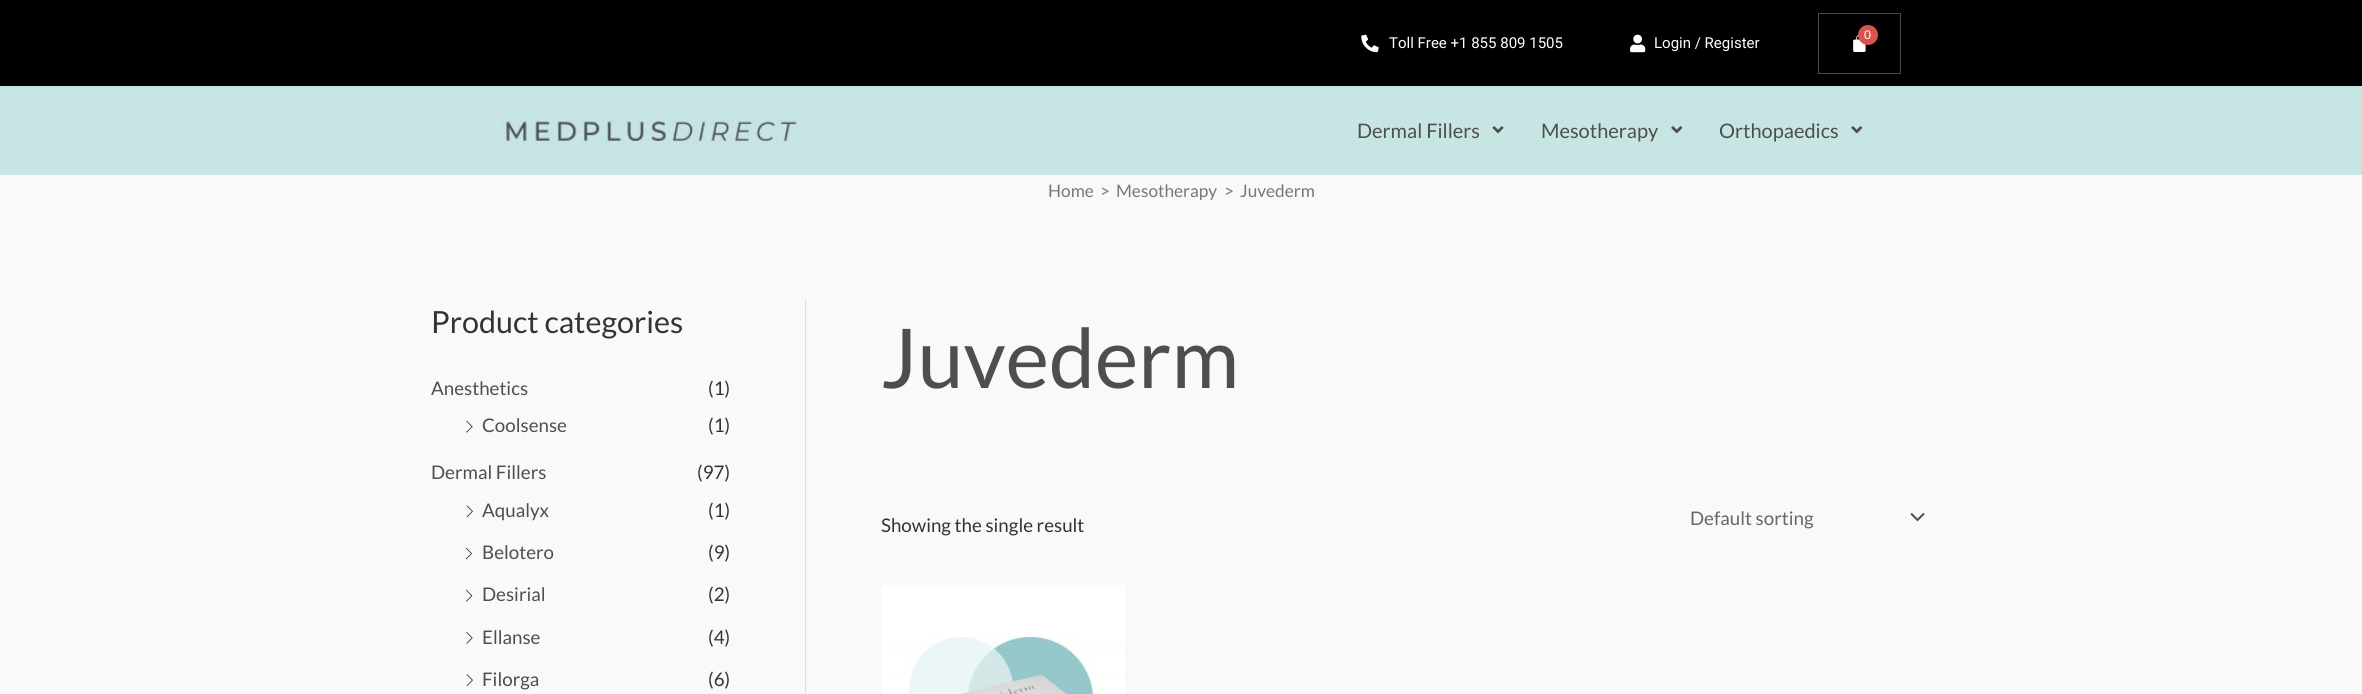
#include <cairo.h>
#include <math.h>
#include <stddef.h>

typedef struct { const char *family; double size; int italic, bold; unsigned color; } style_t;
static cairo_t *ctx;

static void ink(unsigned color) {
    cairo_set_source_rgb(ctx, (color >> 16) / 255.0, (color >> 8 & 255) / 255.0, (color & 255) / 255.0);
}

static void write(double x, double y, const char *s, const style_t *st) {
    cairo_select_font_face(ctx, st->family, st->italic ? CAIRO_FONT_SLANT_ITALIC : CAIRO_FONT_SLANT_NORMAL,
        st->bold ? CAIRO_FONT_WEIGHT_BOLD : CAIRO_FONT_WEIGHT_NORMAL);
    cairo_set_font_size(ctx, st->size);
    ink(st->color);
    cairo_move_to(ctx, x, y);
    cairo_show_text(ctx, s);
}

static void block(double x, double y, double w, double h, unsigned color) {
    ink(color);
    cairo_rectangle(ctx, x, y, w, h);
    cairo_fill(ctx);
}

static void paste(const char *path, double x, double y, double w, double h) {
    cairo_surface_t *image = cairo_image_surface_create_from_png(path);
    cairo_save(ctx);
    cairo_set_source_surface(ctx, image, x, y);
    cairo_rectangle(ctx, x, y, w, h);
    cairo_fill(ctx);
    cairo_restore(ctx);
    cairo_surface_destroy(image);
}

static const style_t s1 = {"Lato", 12, 0, 0, 0xffffff};
static const style_t s2 = {"Roboto", 15, 0, 0, 0xffffff};
static const style_t s3 = {"Lato", 20, 0, 0, 0x4e4e4e};
static const style_t s4 = {"Lato", 17.25, 0, 0, 0x777777};
static const style_t s5 = {"Lato", 30.5, 0, 0, 0x333333};
static const style_t s6 = {"Lato", 18.75, 0, 0, 0x4e4e4e};
static const style_t s7 = {"Lato", 18.75, 0, 0, 0x333333};
static const style_t s8 = {"Lato", 82.5, 0, 0, 0x4e4e4e};
static const style_t s9 = {"Lato", 18.75, 0, 0, 0x666666};

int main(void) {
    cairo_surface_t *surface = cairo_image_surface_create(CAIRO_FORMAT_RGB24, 2362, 694);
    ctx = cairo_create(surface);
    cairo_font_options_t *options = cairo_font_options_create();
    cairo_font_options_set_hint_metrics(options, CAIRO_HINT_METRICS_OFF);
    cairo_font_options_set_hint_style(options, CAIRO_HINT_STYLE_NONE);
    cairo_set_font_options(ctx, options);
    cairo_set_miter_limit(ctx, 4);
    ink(0xf9f9f9);
    cairo_paint(ctx);
    block(0, 0, 2362, 86, 0x000000);
    cairo_rectangle(ctx, 1818.5, 13.5, 82, 60);
    ink(0x4d4848);
    cairo_set_line_width(ctx, 1);
    cairo_stroke(ctx);
    paste("pic1.png", 1853, 35, 13, 17);
    ink(0xd9534f);
    cairo_arc(ctx, 1868, 35, 10, 0, 2 * M_PI);
    cairo_fill(ctx);
    write(1864, 39, "0", &s1);
    paste("pic2.png", 1361, 34, 18, 19);
    write(1389, 48, "Toll Free +1 855 809 1505", &s2);
    paste("pic3.png", 1630, 34, 16, 19);
    write(1654, 48, "Login / Register", &s2);
    block(0, 86, 2362, 89, 0xc7e5e3);
    paste("pic4.png", 499, 117, 300, 28);
    write(1357, 138, "Dermal Fillers", &s3);
    paste("pic5.png", 1492, 126, 12, 8);
    write(1541, 138, "Mesotherapy", &s3);
    paste("pic6.png", 1671, 126, 12, 8);
    write(1719, 138, "Orthopaedics", &s3);
    paste("pic6.png", 1851, 126, 12, 8);
    write(1048, 197, "Home", &s4);
    write(1100, 197, ">", &s4);
    write(1116, 197, "Mesotherapy", &s4);
    write(1224, 197, ">", &s4);
    write(1240, 197, "Juvederm", &s4);
    block(805, 299, 1, 395, 0xdddddd);
    write(431, 333, "Product categories", &s5);
    write(431, 395, "Anesthetics", &s6);
    write(708, 395, "(1)", &s7);
    paste("pic7.png", 466, 420, 7, 13);
    write(482, 432, "Coolsense", &s6);
    write(708, 432, "(1)", &s7);
    write(431, 479, "Dermal Fillers", &s6);
    write(697, 479, "(97)", &s7);
    paste("pic8.png", 466, 505, 7, 13);
    write(482, 517, "Aqualyx", &s6);
    write(708, 517, "(1)", &s7);
    paste("pic9.png", 465, 547, 7, 13);
    write(482, 559, "Belotero", &s6);
    write(708, 559, "(9)", &s7);
    paste("pic10.png", 466, 589, 7, 13);
    write(482, 601, "Desirial", &s6);
    write(708, 601, "(2)", &s7);
    paste("pic11.png", 466, 632, 7, 12);
    write(482, 644, "Ellanse", &s6);
    write(708, 644, "(4)", &s7);
    paste("pic12.png", 466, 674, 7, 12);
    write(482, 686, "Filorga", &s6);
    write(708, 686, "(6)", &s7);
    write(881, 388, "Juvederm", &s8);
    write(881, 532, "Showing the single result", &s7);
    paste("pic13.png", 1910, 513, 15, 9);
    write(1690, 525, "Default sorting", &s9);
    paste("pic14.png", 881, 585, 244, 109);
    cairo_surface_write_to_png(surface, "screenshot.png");
    cairo_font_options_destroy(options);
    cairo_destroy(ctx);
    cairo_surface_destroy(surface);
    return 0;
}
